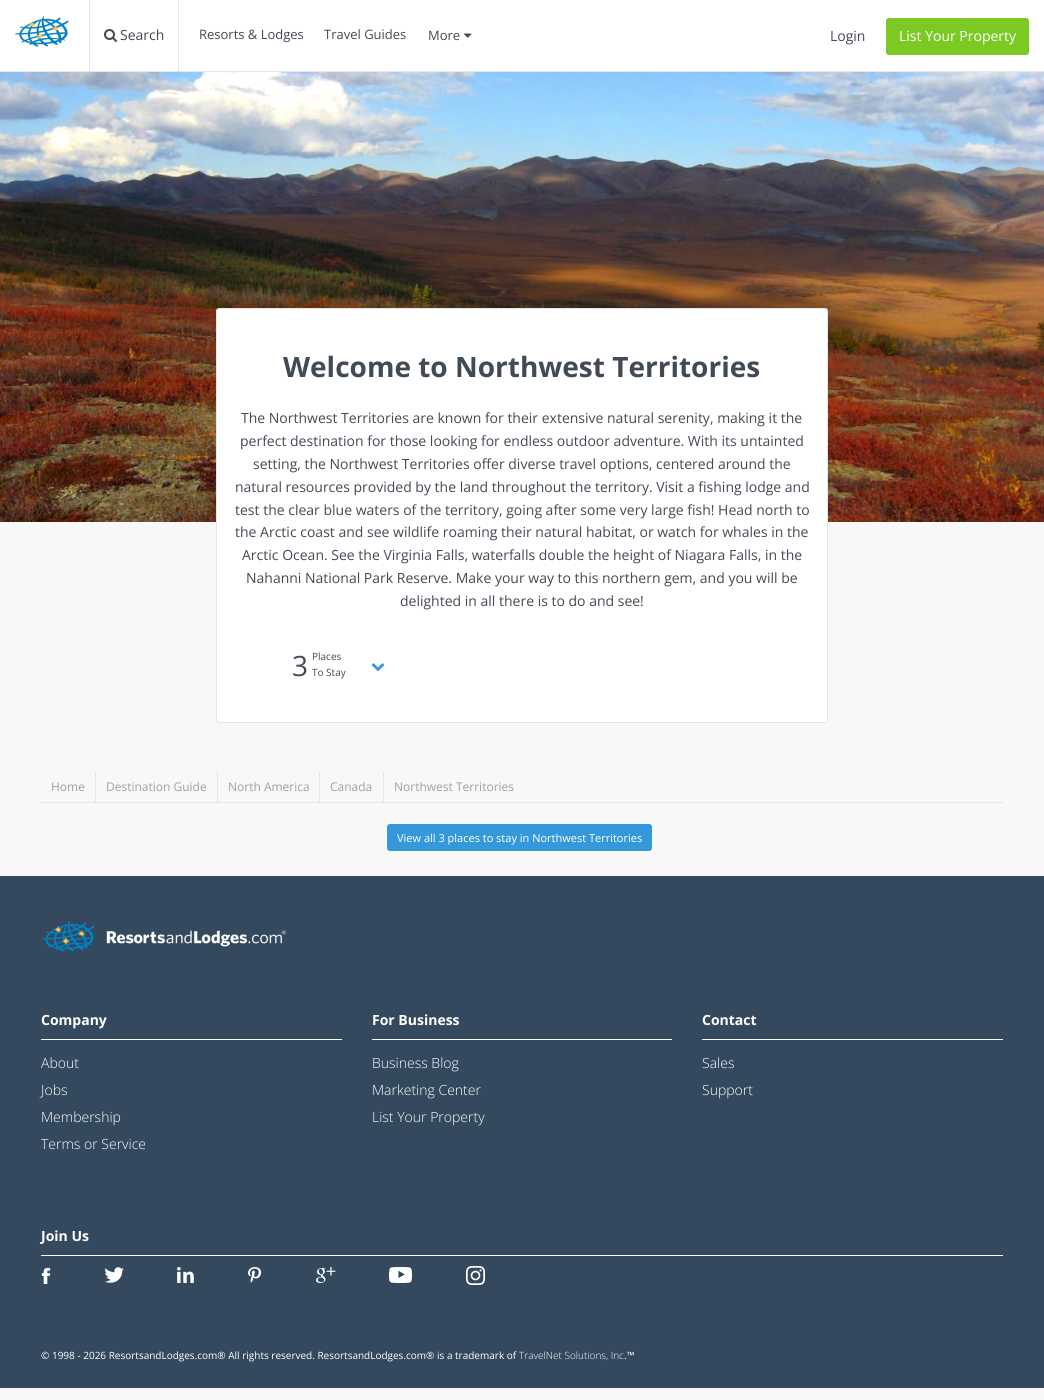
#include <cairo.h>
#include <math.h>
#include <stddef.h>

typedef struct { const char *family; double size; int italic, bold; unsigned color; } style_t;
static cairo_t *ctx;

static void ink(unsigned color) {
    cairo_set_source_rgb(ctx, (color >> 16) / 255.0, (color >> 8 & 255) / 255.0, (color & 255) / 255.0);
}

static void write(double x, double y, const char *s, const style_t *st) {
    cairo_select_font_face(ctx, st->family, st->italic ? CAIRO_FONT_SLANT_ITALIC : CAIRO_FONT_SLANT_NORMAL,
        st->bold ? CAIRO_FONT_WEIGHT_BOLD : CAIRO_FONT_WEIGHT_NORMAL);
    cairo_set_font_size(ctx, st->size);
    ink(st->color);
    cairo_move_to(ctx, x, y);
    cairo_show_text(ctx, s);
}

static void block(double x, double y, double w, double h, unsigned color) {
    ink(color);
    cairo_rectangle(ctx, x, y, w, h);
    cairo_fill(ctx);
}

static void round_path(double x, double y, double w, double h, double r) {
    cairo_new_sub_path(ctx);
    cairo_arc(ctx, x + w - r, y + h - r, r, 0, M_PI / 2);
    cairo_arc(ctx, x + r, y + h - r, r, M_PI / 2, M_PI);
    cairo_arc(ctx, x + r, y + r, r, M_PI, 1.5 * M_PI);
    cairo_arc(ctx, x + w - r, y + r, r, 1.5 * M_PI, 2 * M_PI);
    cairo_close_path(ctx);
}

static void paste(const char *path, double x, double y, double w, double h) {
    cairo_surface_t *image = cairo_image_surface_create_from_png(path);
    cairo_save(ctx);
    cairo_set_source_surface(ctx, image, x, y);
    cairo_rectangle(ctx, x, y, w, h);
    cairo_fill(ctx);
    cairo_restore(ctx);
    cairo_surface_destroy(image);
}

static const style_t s1 = {"Open Sans", 14, 0, 0, 0x424a54};
static const style_t s2 = {"Open Sans", 13, 0, 0, 0x424a54};
static const style_t s3 = {"Open Sans", 14, 0, 0, 0xffffff};
static const style_t s4 = {"Open Sans", 28, 0, 1, 0x424a54};
static const style_t s5 = {"Open Sans", 28, 0, 0, 0x424a54};
static const style_t s6 = {"Open Sans", 10, 0, 0, 0x424a54};
static const style_t s7 = {"Open Sans", 12, 0, 0, 0xa0a0a0};
static const style_t s8 = {"Open Sans", 11, 0, 0, 0xffffff};
static const style_t s9 = {"Open Sans", 14, 0, 1, 0xffffff};
static const style_t s10 = {"Open Sans Light", 14, 0, 0, 0xffffff};
static const style_t s11 = {"Open Sans", 10, 0, 0, 0xffffff};
static const style_t s12 = {"Open Sans Light", 10, 0, 0, 0xffffff};

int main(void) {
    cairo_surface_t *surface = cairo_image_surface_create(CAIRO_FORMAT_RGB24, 1044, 1400);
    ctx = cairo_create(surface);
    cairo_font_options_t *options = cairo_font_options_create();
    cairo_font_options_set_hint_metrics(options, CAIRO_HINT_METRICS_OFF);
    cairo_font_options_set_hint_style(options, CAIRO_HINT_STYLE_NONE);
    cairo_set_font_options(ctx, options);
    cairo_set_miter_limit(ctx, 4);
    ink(0xf8f8f8);
    cairo_paint(ctx);
    block(0, 0, 1044, 71, 0xffffff);
    block(0, 71, 1044, 1, 0xe5e5e5);
    block(89, 0, 1, 71, 0xe5e5e5);
    paste("pic1.png", 15, 16, 54, 31);
    paste("pic2.png", 104, 29, 13, 13);
    write(120, 40, "Search", &s1);
    block(178, 0, 1, 71, 0xe5e5e5);
    write(199, 39, "Resorts & Lodges", &s2);
    write(324, 39, "Travel Guides", &s2);
    write(428, 40, "More", &s2);
    paste("pic3.png", 464, 33, 8, 5);
    write(830, 41, "Login", &s1);
    ink(0x7cc924);
    round_path(886.5, 18.5, 142, 36, 2.5);
    cairo_fill_preserve(ctx);
    cairo_set_line_width(ctx, 1);
    cairo_stroke(ctx);
    write(899, 41, "List Your Property", &s3);
    paste("pic4.png", 0, 72, 1044, 450);
    round_path(216.5, 308.5, 611, 414, 2.5);
    cairo_fill_preserve(ctx);
    ink(0xe5e5e5);
    cairo_stroke(ctx);
    write(283, 377, "Welcome to Northwest Territories", &s4);
    write(241, 423, "The Northwest Territories are known for their extensive natural serenity, making it the", &s1);
    write(240, 446, "perfect destination for those looking for endless outdoor adventure. With its untainted", &s1);
    write(253, 469, "setting, the Northwest Territories offer diverse travel options, centered around the", &s1);
    write(235, 492, "natural resources provided by the land throughout the territory. Visit a fishing lodge and", &s1);
    write(235, 515, "test the clear blue waters of the territory, going after some very large fish! Head north to", &s1);
    write(235, 537, "the Arctic coast and see wildlife roaming their natural habitat, or watch for whales in the", &s1);
    write(242, 560, "Arctic Ocean. See the Virginia Falls, waterfalls double the height of Niagara Falls, in the", &s1);
    write(246, 583, "Nahanni National Park Reserve. Make your way to this northern gem, and you will be", &s1);
    write(400, 606, "delighted in all there is to do and see!", &s1);
    write(292, 676, "3", &s5);
    write(312, 660, "Places", &s6);
    write(312, 676, "To Stay", &s6);
    paste("pic5.png", 371, 663, 14, 9);
    block(41, 802, 962, 1, 0xe5e5e5);
    block(95, 772, 1, 30, 0xe5e5e5);
    write(51, 791, "Home", &s7);
    block(217, 772, 1, 30, 0xe5e5e5);
    write(106, 791, "Destination Guide", &s7);
    block(319, 772, 1, 30, 0xe5e5e5);
    write(228, 791, "North America", &s7);
    block(383, 772, 1, 30, 0xe5e5e5);
    write(330, 791, "Canada", &s7);
    write(394, 791, "Northwest Territories", &s7);
    ink(0x3498db);
    round_path(387, 824, 265, 27, 3);
    cairo_fill(ctx);
    write(397, 842, "View all 3 places to stay in Northwest Territories", &s8);
    block(0, 876, 1044, 512, 0x34495e);
    paste("pic6.png", 41, 921, 245, 31);
    block(41, 1039, 301, 1, 0xffffff);
    write(41, 1025, "Company", &s9);
    write(41, 1068, "About", &s10);
    write(41, 1095, "Jobs", &s10);
    write(41, 1122, "Membership", &s10);
    write(41, 1149, "Terms or Service", &s10);
    block(372, 1039, 300, 1, 0xffffff);
    write(372, 1025, "For Business", &s9);
    write(372, 1068, "Business Blog", &s10);
    write(372, 1095, "Marketing Center", &s10);
    write(372, 1122, "List Your Property", &s10);
    block(702, 1039, 301, 1, 0xffffff);
    write(702, 1025, "Contact", &s9);
    write(702, 1068, "Sales", &s10);
    write(702, 1095, "Support", &s10);
    block(41, 1255, 962, 1, 0xffffff);
    write(41, 1241, "Join Us", &s9);
    paste("pic7.png", 41, 1267, 10, 17);
    paste("pic8.png", 105, 1267, 19, 16);
    paste("pic9.png", 177, 1267, 17, 16);
    paste("pic10.png", 248, 1267, 14, 16);
    paste("pic11.png", 316, 1267, 20, 16);
    paste("pic12.png", 389, 1267, 23, 16);
    paste("pic13.png", 466, 1266, 19, 19);
    write(41, 1359, "© 1998 - 2026 ResortsandLodges.com® All rights reserved. ResortsandLodges.com® is a trademark of", &s11);
    write(519, 1359, "TravelNet Solutions, Inc", &s12);
    write(624, 1359, ".™", &s11);
    cairo_surface_write_to_png(surface, "screenshot.png");
    cairo_font_options_destroy(options);
    cairo_destroy(ctx);
    cairo_surface_destroy(surface);
    return 0;
}
